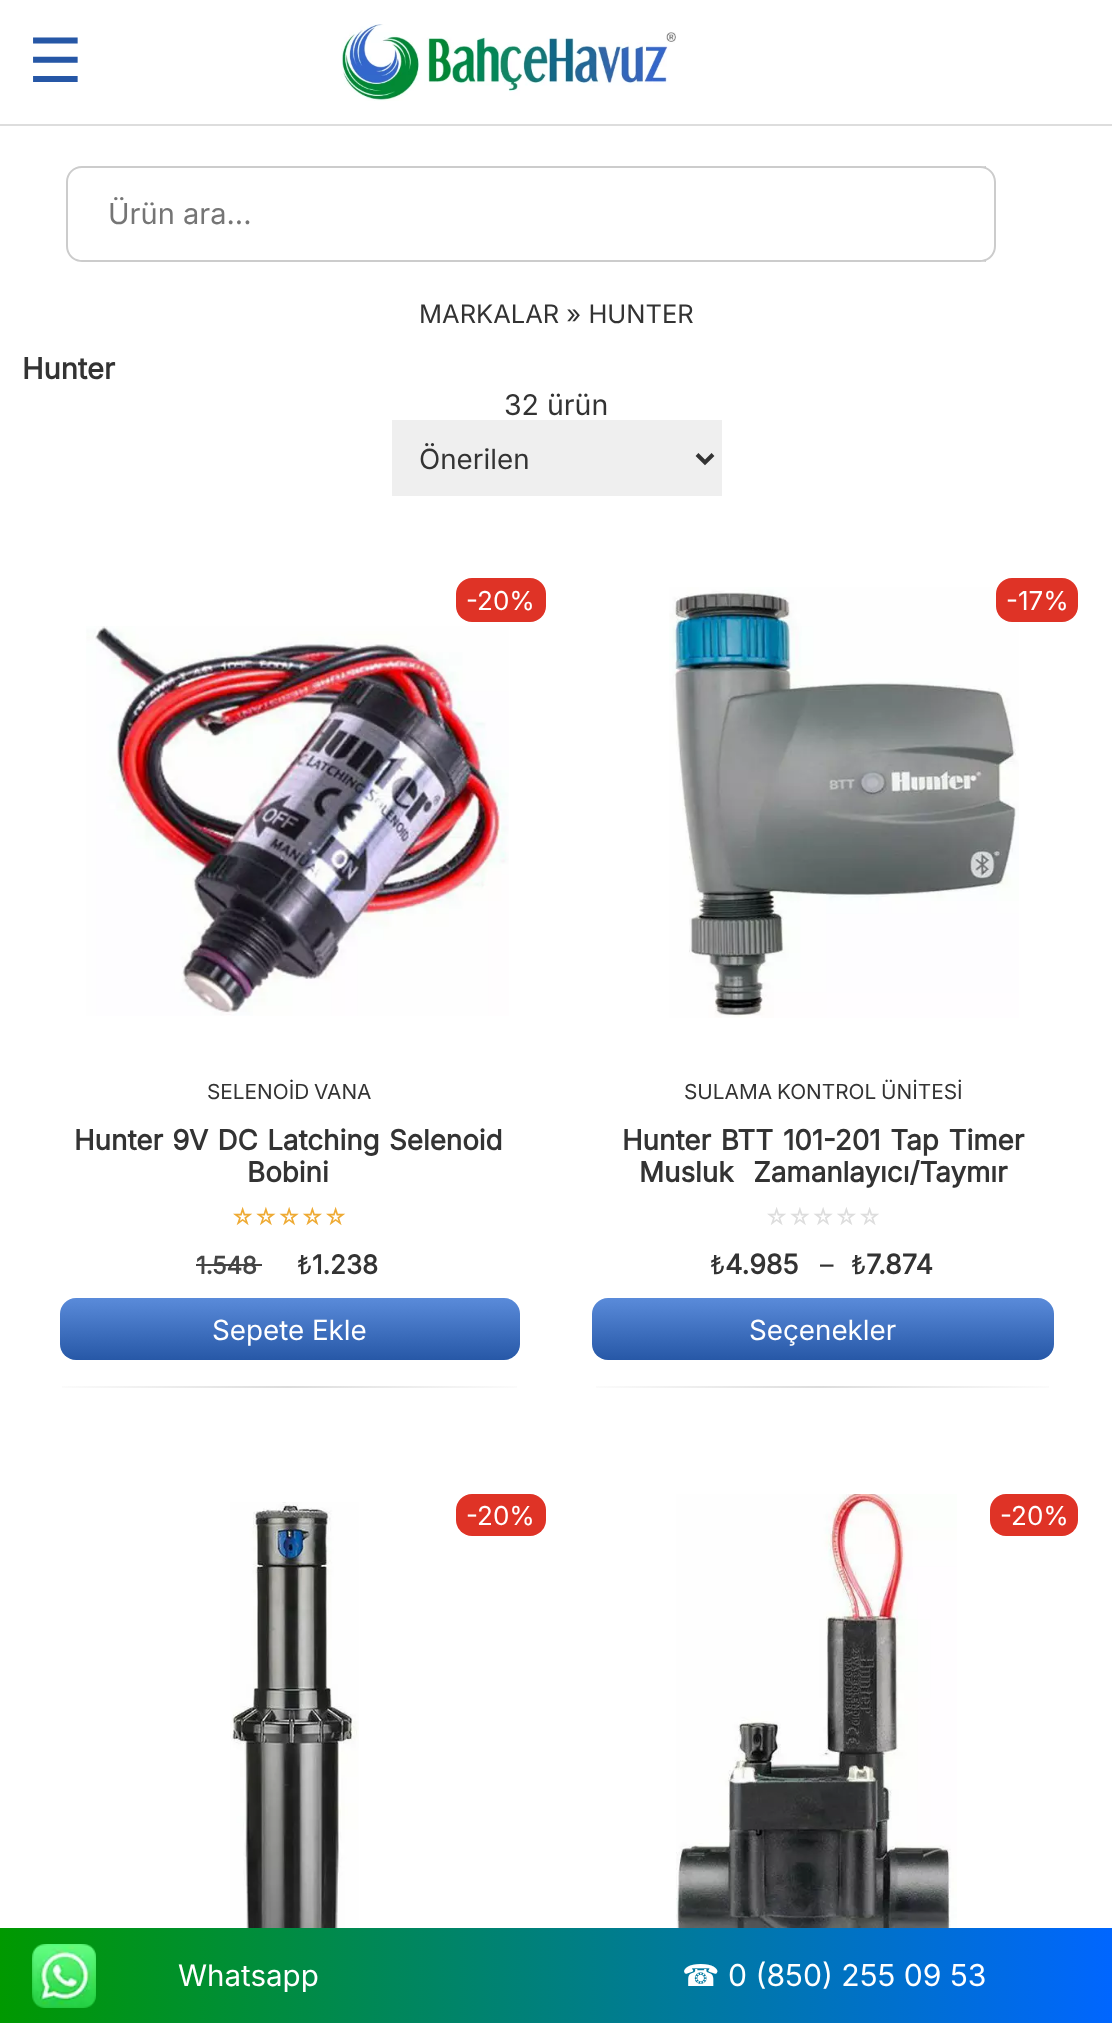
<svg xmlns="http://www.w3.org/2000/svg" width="1112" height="2023">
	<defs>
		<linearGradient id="g1" gradientUnits="userSpaceOnUse" x1="289" y1="1299" x2="289" y2="1361"><stop offset="0" stop-color="#598AD9" /><stop offset="1" stop-color="#2657A6" /></linearGradient>
		<linearGradient id="g2" gradientUnits="userSpaceOnUse" x1="822" y1="1299" x2="822" y2="1361"><stop offset="0" stop-color="#598AD9" /><stop offset="1" stop-color="#2657A6" /></linearGradient>
		<linearGradient id="g3" gradientUnits="userSpaceOnUse" x1="0" y1="1976" x2="1112" y2="1976"><stop offset="0" stop-color="#009900" /><stop offset="1" stop-color="#0066FF" /></linearGradient>
	</defs>
	<rect width="100%" height="100%" fill="#FFFFFF" />
	<text x="28" y="82" font-family="DejaVu Sans" font-size="61" fill="#2657A6">☰</text>
	<rect x="0" y="124" width="1112" height="2" fill="#DDDDDD" />
	<image x="341" y="24" width="335" height="77" href="assets/img1.png" />
	<path d="M82 166H986V262H82C73 262 66 255 66 246V182C66 173 73 166 82 166ZM82 168H986V260H82C74 260 68 254 68 246V182C68 174 74 168 82 168Z" fill="#CCCCCC" fill-rule="evenodd" />
	<text x="108" y="224" font-family="Inter" font-size="29" fill="#757575">Ürün ara...</text>
	<path d="M918 166H980C989 166 996 173 996 182V246C996 255 989 262 980 262H918Z" fill="#FFFFFF" />
	<path d="M918 166H980C989 166 996 173 996 182V246C996 255 989 262 980 262H918ZM918 168H980C988 168 994 174 994 182V246C994 254 988 260 980 260H918Z" fill="#CCCCCC" fill-rule="evenodd" />
	<text x="419" y="323" font-family="Inter" font-size="25.5" fill="#333333">MARKALAR » HUNTER</text>
	<text x="22" y="379" font-family="Inter" font-size="29" font-weight="700" fill="#333333">Hunter</text>
	<text x="504" y="415" font-family="Inter" font-size="28.5" fill="#333333">32 ürün</text>
	<rect x="392" y="420" width="330" height="76" fill="#EFEFEF" />
	<path d="M697 454.5L705 462.5L713 454.5" fill="none" stroke="#333333" stroke-width="4" />
	<text x="419" y="469" font-family="Inter" font-size="27.75" fill="#333333">Önerilen</text>
	<image x="62" y="1386" width="455" height="2" href="assets/img2.png" />
	<rect x="456" y="578" width="90" height="44" rx="16" fill="#DF3326" />
	<text x="466" y="610" font-family="Inter" font-size="26" fill="#FFFFFF">-20%</text>
	<image x="86" y="626" width="423" height="390" href="assets/img3.png" />
	<text x="207" y="1099" word-spacing="-1" font-family="Inter" font-size="20.8" fill="#333333">SELENOİD VANA</text>
	<g font-family="Inter" font-size="27.75" font-weight="700" fill="#333333">
		<text x="74" y="1150" word-spacing="1.5">Hunter 9V DC Latching Selenoid</text>
		<text x="247" y="1182">Bobini</text>
	</g>
	<text x="231" y="1225" font-family="Inter" font-size="22.25" fill="#EEAA33">☆☆☆☆☆</text>
	<text x="196" y="1274" font-family="Inter" font-size="24" font-weight="700" fill="#454545">1.548</text>
	<rect x="196" y="1264" width="66" height="2" fill="#454545" />
	<text x="297" y="1274" font-family="Inter" font-size="26" fill="#333333">₺</text>
	<text x="312" y="1274" font-family="Inter" font-size="26" font-weight="700" fill="#333333">1.238</text>
	<rect x="60" y="1298" width="460" height="62" rx="16" fill="url(#g1)" />
	<text x="212" y="1340" font-family="Inter" font-size="27.75" fill="#FFFFFF">Sepete Ekle</text>
	<image x="596" y="1386" width="453" height="2" href="assets/img4.png" />
	<image x="669" y="587" width="350" height="431" href="assets/img5.png" />
	<rect x="996" y="578" width="82" height="44" rx="16" fill="#DF3326" />
	<text x="1006" y="610" font-family="Inter" font-size="26" fill="#FFFFFF">-17%</text>
	<text x="684" y="1099" word-spacing="-1" font-family="Inter" font-size="20.8" fill="#333333">SULAMA KONTROL ÜNİTESİ</text>
	<g font-family="Inter" font-size="27.75" font-weight="700" fill="#333333">
		<text x="622" y="1150" word-spacing="2">Hunter BTT 101-201 Tap Timer</text>
		<text x="639" y="1182" word-spacing="12">Musluk Zamanlayıcı/Taymır</text>
	</g>
	<text x="765" y="1225" font-family="Inter" font-size="22.25" fill="#DDDDDD">☆☆☆☆☆</text>
	<text x="710" y="1274" font-family="Inter" font-size="26" fill="#333333">₺</text>
	<text x="725" y="1274" font-family="Inter" font-size="27" font-weight="700" fill="#333333">4.985</text>
	<text x="820" y="1274" font-family="Inter" font-size="27" fill="#333333">–</text>
	<text x="851" y="1274" font-family="Inter" font-size="26" fill="#333333">₺</text>
	<text x="866" y="1274" font-family="Inter" font-size="27" font-weight="700" fill="#333333">7.874</text>
	<rect x="592" y="1298" width="462" height="62" rx="16" fill="url(#g2)" />
	<text x="749" y="1340" font-family="Inter" font-size="27.75" fill="#FFFFFF">Seçenekler</text>
	<image x="230" y="1502" width="129" height="426" href="assets/img6.png" />
	<rect x="456" y="1494" width="90" height="42" rx="16" fill="#DF3326" />
	<text x="466" y="1525" font-family="Inter" font-size="26" fill="#FFFFFF">-20%</text>
	<image x="676" y="1494" width="281" height="434" href="assets/img7.png" />
	<rect x="990" y="1494" width="88" height="42" rx="16" fill="#DF3326" />
	<text x="1000" y="1525" font-family="Inter" font-size="26" fill="#FFFFFF">-20%</text>
	<rect x="0" y="1928" width="1112" height="95" fill="url(#g3)" />
	<image x="32" y="1944" width="64" height="64" href="assets/img8.png" />
	<text x="178" y="1986" font-family="Inter" font-size="29.5" fill="#FFFFFF">Whatsapp</text>
	<text x="682" y="1986" font-family="DejaVu Sans" font-size="30.1" fill="#FFFFFF">☎</text>
	<text x="728" y="1986" font-family="Inter" font-size="30.1" fill="#FFFFFF">0 (850) 255 09 53</text>
</svg>
